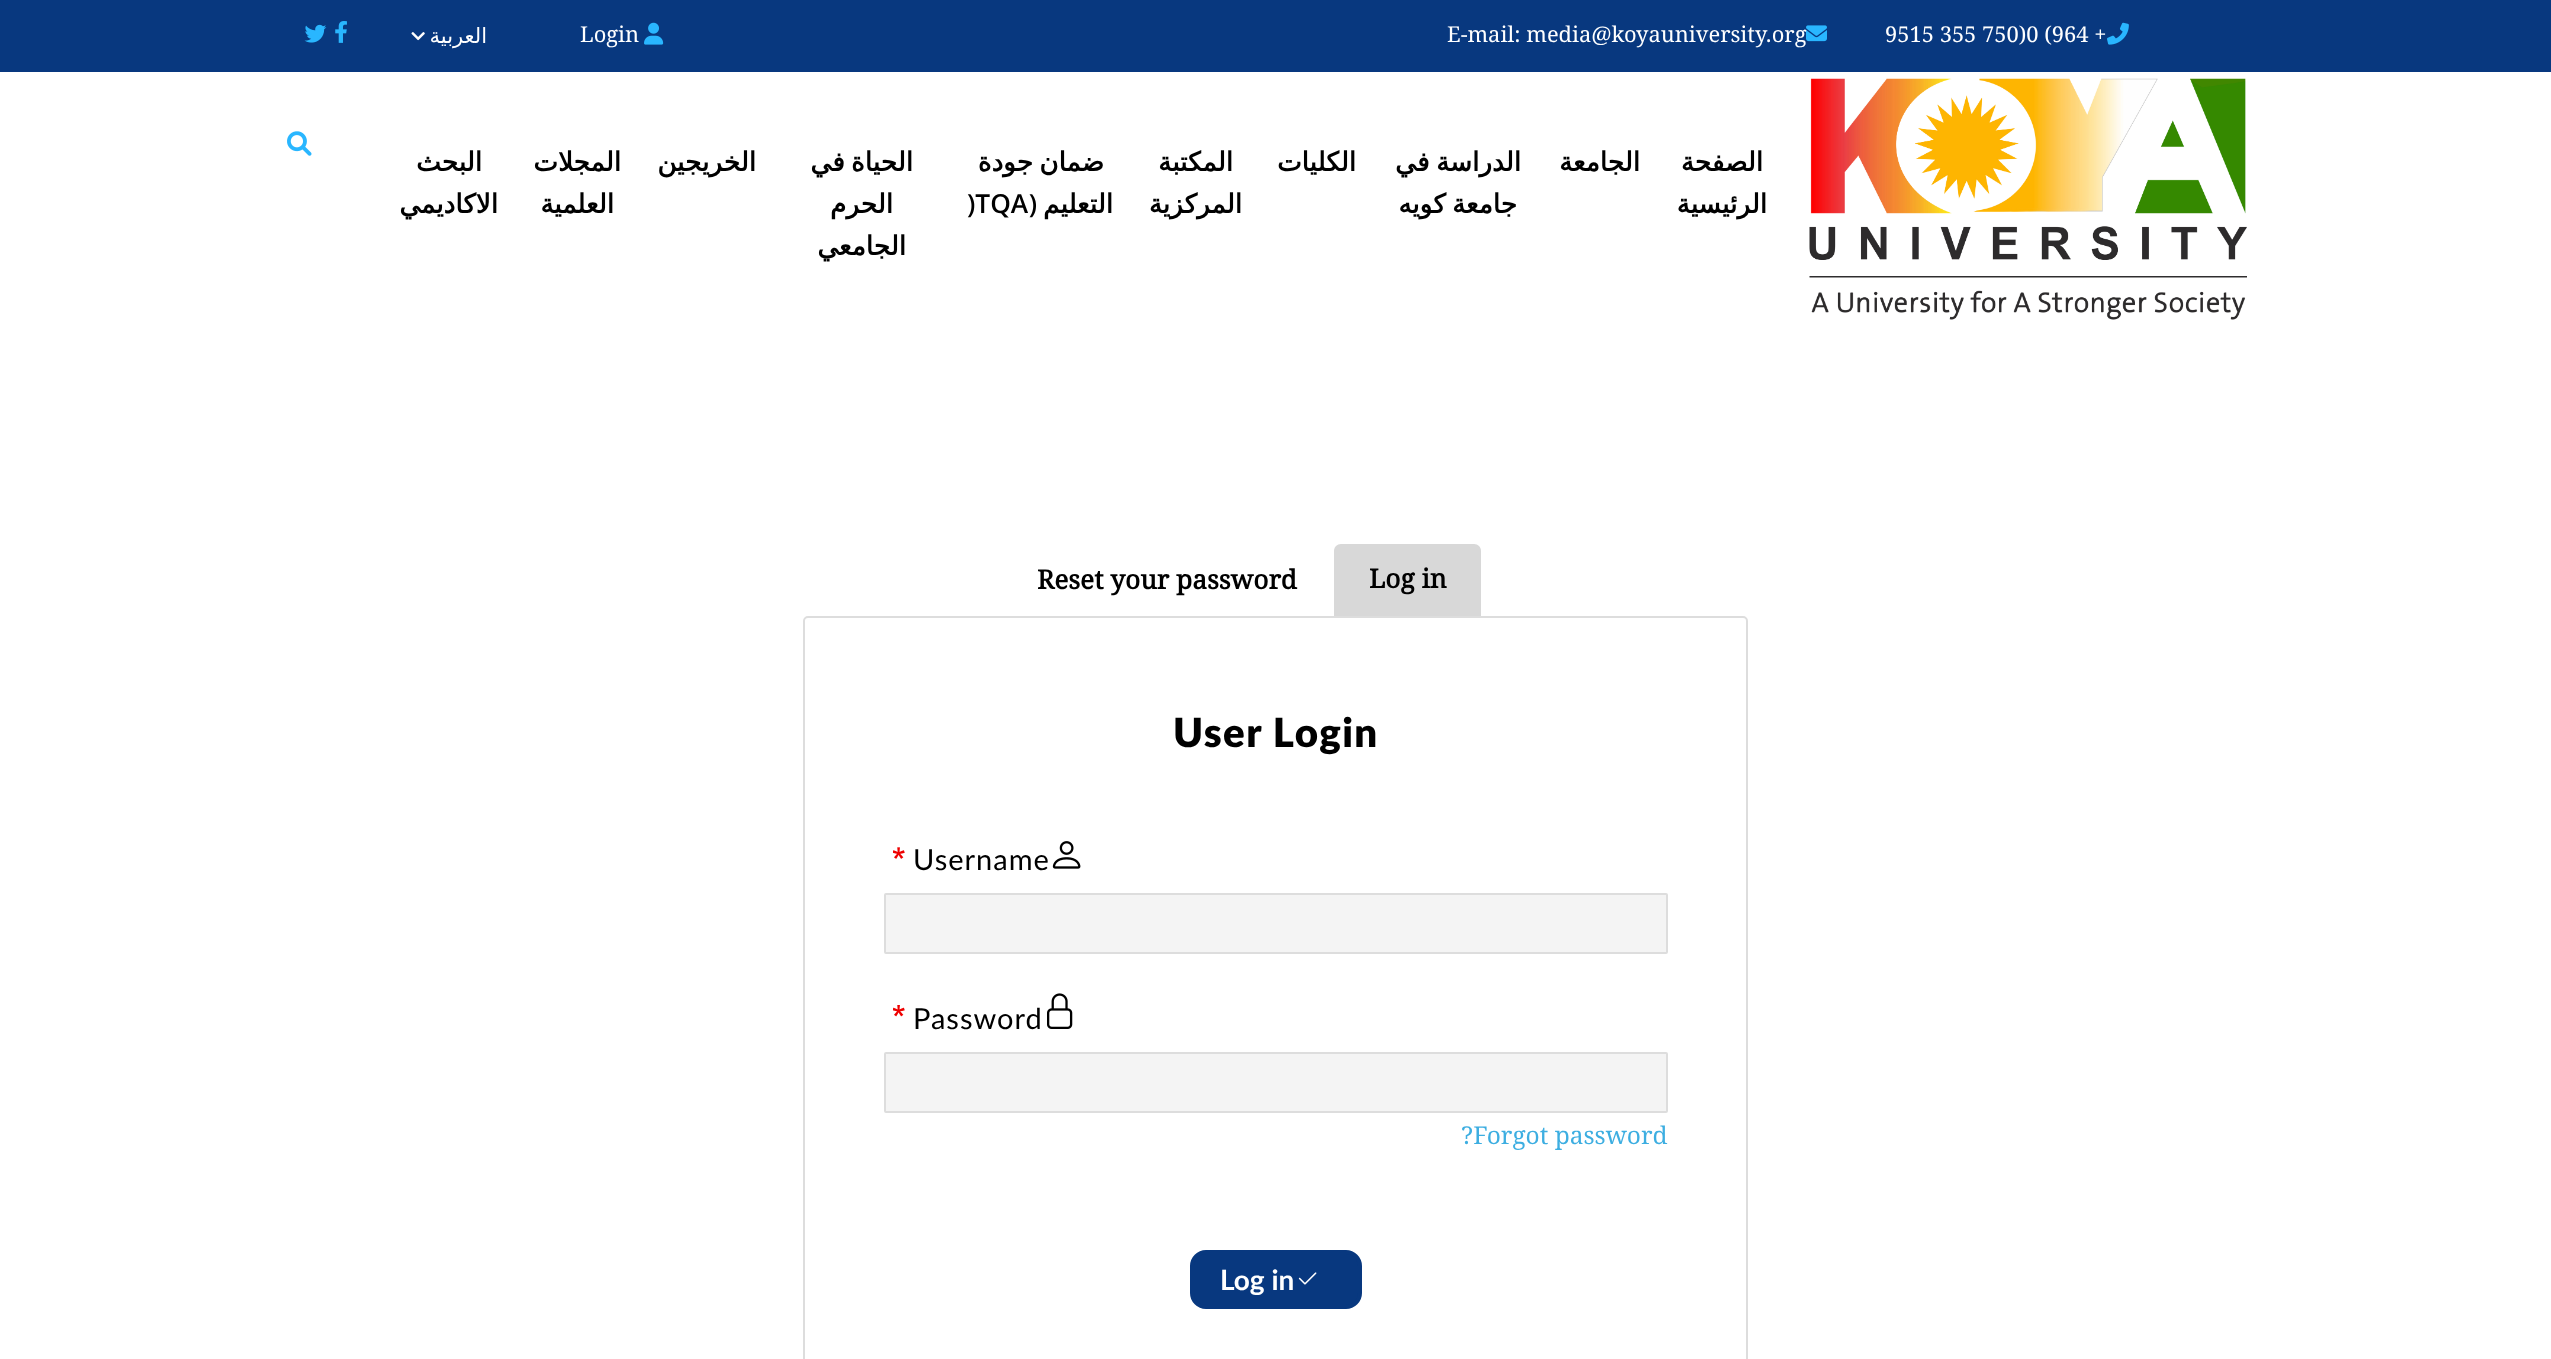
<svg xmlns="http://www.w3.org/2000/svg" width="2551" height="1359">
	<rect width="100%" height="100%" fill="#FFFFFF" />
	<rect x="0" y="0" width="2551" height="72" fill="#08387F" />
	<image x="2107" y="22" width="22" height="23" href="assets/img1.png" />
	<text x="1885" y="42" font-family="Droid Serif" font-size="21.9" fill="#FFFFFF">9515 355 750)0 (964 +</text>
	<image x="1806" y="25" width="21" height="17" href="assets/img2.png" />
	<text x="1447" y="42" font-family="Droid Serif" font-size="21.9" fill="#FFFFFF">E-mail: media@koyauniversity.org</text>
	<image x="644" y="22" width="20" height="23" href="assets/img3.png" />
	<text x="580" y="42" font-family="Droid Serif" font-size="21.9" fill="#FFFFFF">Login</text>
	<text x="487" y="43" font-family="DejaVu Sans" font-size="21" direction="rtl" fill="#FFFFFF">العربية</text>
	<image x="411" y="32" width="14" height="9" href="assets/img4.png" />
	<image x="335" y="21" width="12" height="22" href="assets/img5.png" />
	<image x="304" y="24" width="23" height="19" href="assets/img6.png" />
	<image x="287" y="131" width="25" height="25" href="assets/img7.png" />
	<image x="1809" y="78" width="438" height="242" href="assets/img8.png" />
	<g font-family="DejaVu Sans" font-size="26.25" font-weight="700" direction="rtl" fill="#000000">
		<text x="1763" y="171">الصفحة</text>
		<text x="1767" y="213">الرئیسیة</text>
		<text x="1640" y="171">الجامعة</text>
		<text x="1521" y="171" word-spacing="-2">الدراسة في</text>
		<text x="1517" y="213" word-spacing="-2">جامعة کویە</text>
		<text x="1356" y="171">الکلیات</text>
		<text x="1233" y="171">المکتبة</text>
		<text x="1242" y="213">المرکزیة</text>
		<text x="1104" y="171" word-spacing="-2">ضمان جودة</text>
		<text x="1113" y="213">التعلیم</text>
	</g>
	<text x="1037" y="213" font-family="Open Sans" font-size="26.25" font-weight="600" direction="rtl" fill="#000000">(</text>
	<text x="967" y="213" font-family="Open Sans" font-size="26.25" font-weight="600" fill="#000000">)TQA</text>
	<g font-family="DejaVu Sans" font-size="26.25" font-weight="700" direction="rtl" fill="#000000">
		<text x="913" y="171" word-spacing="-2">الحیاة في</text>
		<text x="893" y="213">الحرم</text>
		<text x="906" y="255">الجامعي</text>
		<text x="756" y="171">الخریجین</text>
		<text x="621" y="171">المجلات</text>
		<text x="614" y="213">العلمیة</text>
		<text x="482" y="171">البحث</text>
		<text x="498" y="213">الاکادیمي</text>
	</g>
	<path d="M1341 544H1474C1478 544 1481 547 1481 551V616H1334V551C1334 547 1337 544 1341 544Z" fill="#D8D8D8" />
	<g font-family="Droid Serif" font-size="26.25" font-weight="700" fill="#000000">
		<text x="1369" y="588">Log in</text>
		<text x="1037" y="589">Reset your password</text>
	</g>
	<rect x="804" y="617" width="943" height="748" rx="4" fill="none" stroke="#DDDDDD" stroke-width="2" />
	<text x="1173" y="747" font-family="Lato" font-size="40.25" font-weight="900" letter-spacing="1.4" fill="#000000">User Login</text>
	<image x="1052" y="841" width="29" height="28" href="assets/img9.png" />
	<text x="913" y="870" font-family="Lato" font-size="29" letter-spacing="1" fill="#000000">Username</text>
	<image x="893" y="847" width="12" height="12" href="assets/img10.png" />
	<rect x="885" y="894" width="782" height="59" rx="1" fill="#F4F4F4" stroke="#DDDDDD" stroke-width="2" />
	<image x="1047" y="993" width="26" height="36" href="assets/img11.png" />
	<text x="913" y="1029" font-family="Lato" font-size="29" letter-spacing="1" fill="#000000">Password</text>
	<image x="893" y="1005" width="12" height="12" href="assets/img12.png" />
	<rect x="885" y="1053" width="782" height="59" rx="1" fill="#F4F4F4" stroke="#DDDDDD" stroke-width="2" />
	<text x="1461" y="1144" font-family="Droid Serif" font-size="24.5" fill="#3DAEE1">?Forgot password</text>
	<rect x="1192" y="1252" width="168" height="55" rx="14" fill="#08387F" stroke="#08387F" stroke-width="4" />
	<image x="1298" y="1272" width="19" height="13" href="assets/img13.png" />
	<text x="1220" y="1290" font-family="Lato" font-size="28" font-weight="700" fill="#FFFFFF">Log in</text>
</svg>
